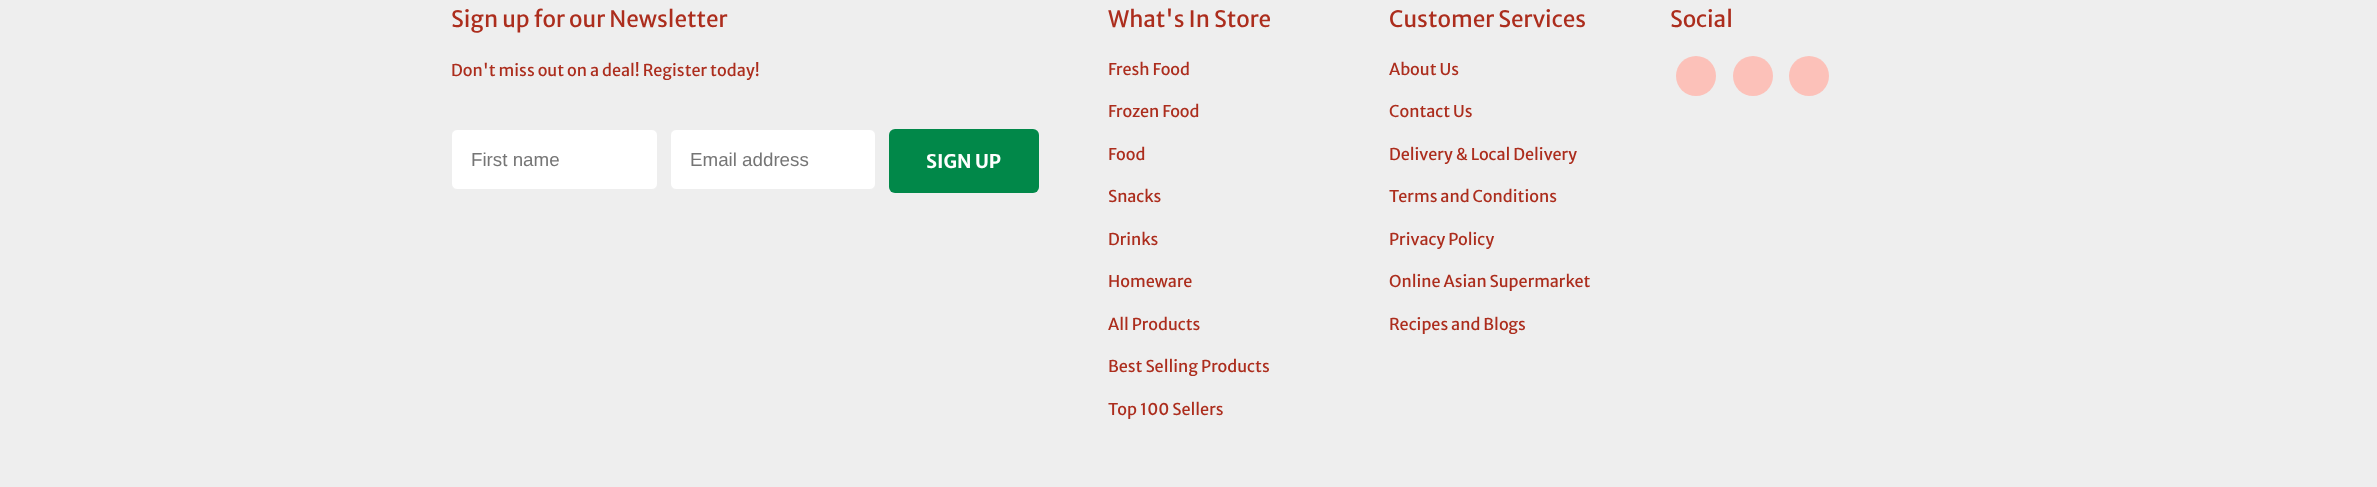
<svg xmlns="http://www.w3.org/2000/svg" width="2377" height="487">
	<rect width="100%" height="100%" fill="#EEEEEE" />
	<text x="451" y="27" font-family="Merriweather Sans" font-size="22.5" fill="#AC2D1D">Sign up for our Newsletter</text>
	<text x="451" y="76" font-family="Merriweather Sans" font-size="16.25" fill="#AC2D1D">Don't miss out on a deal! Register today!</text>
	<rect x="451.5" y="129.5" width="206" height="60" rx="5.5" fill="#FFFFFF" stroke="#EEEEEE" />
	<text x="471" y="166" font-family="Liberation Sans" font-size="18.75" fill="#757575">First name</text>
	<rect x="670.5" y="129.5" width="205" height="60" rx="5.5" fill="#FFFFFF" stroke="#EEEEEE" />
	<text x="690" y="166" font-family="Liberation Sans" font-size="18.75" fill="#757575">Email address</text>
	<rect x="889" y="129" width="150" height="64" rx="6" fill="#018849" />
	<text x="926" y="168" font-family="Merriweather Sans" font-size="18.75" font-weight="700" fill="#FFFFFF">SIGN UP</text>
	<text x="1108" y="27" font-family="Merriweather Sans" font-size="22.5" fill="#AC2D1D">What's In Store</text>
	<g font-family="Merriweather Sans" font-size="16.25" fill="#AC2D1D">
		<text x="1108" y="75">Fresh Food</text>
		<text x="1108" y="117">Frozen Food</text>
		<text x="1108" y="160">Food</text>
		<text x="1108" y="202">Snacks</text>
		<text x="1108" y="245">Drinks</text>
		<text x="1108" y="287">Homeware</text>
		<text x="1108" y="330">All Products</text>
		<text x="1108" y="372">Best Selling Products</text>
		<text x="1108" y="415">Top 100 Sellers</text>
	</g>
	<text x="1389" y="27" font-family="Merriweather Sans" font-size="22.5" fill="#AC2D1D">Customer Services</text>
	<g font-family="Merriweather Sans" font-size="16.25" fill="#AC2D1D">
		<text x="1389" y="75">About Us</text>
		<text x="1389" y="117">Contact Us</text>
		<text x="1389" y="160">Delivery &amp; Local Delivery</text>
		<text x="1389" y="202">Terms and Conditions</text>
		<text x="1389" y="245">Privacy Policy</text>
		<text x="1389" y="287">Online Asian Supermarket</text>
		<text x="1389" y="330">Recipes and Blogs</text>
	</g>
	<text x="1670" y="27" font-family="Merriweather Sans" font-size="22.5" fill="#AC2D1D">Social</text>
	<circle cx="1696" cy="76" r="20" fill="#FCC1B9" />
	<circle cx="1753" cy="76" r="20" fill="#FCC1B9" />
	<circle cx="1809" cy="76" r="20" fill="#FCC1B9" />
</svg>
